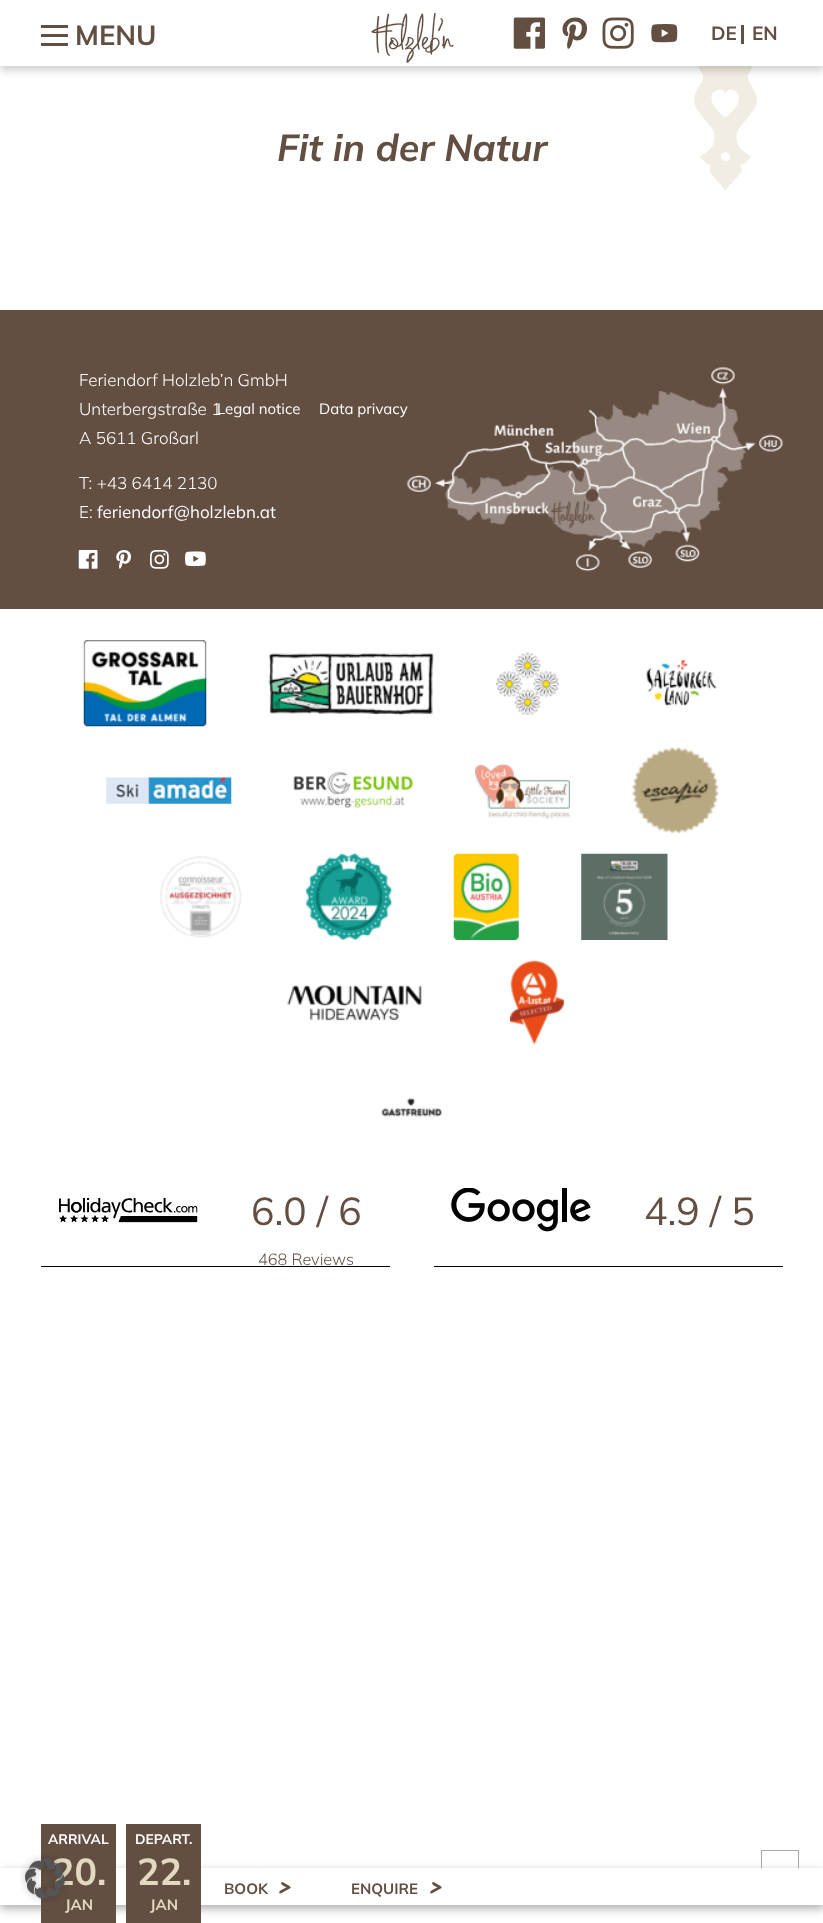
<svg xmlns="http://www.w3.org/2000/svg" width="823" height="1923">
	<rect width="100%" height="100%" fill="#FFFFFF" />
	<rect x="761.5" y="1850.5" width="37" height="37" fill="none" stroke="#B1A7A1" />
	<rect x="0" y="1871" width="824" height="38" fill="#000000" fill-opacity="0.3" filter="blur(4px)" />
	<rect x="0" y="1868" width="823" height="37" fill="#FFFFFF" />
	<rect x="41" y="1824" width="75" height="99" fill="#634E42" />
	<text x="52" y="1885" font-family="'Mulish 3'" font-size="37.5" font-weight="200" fill="#E3D8C0">20.</text>
	<text x="65" y="1910" font-family="'Mulish 3'" font-size="15" font-weight="200" fill="#E3D8C0">JAN</text>
	<image x="20" y="1854" width="50" height="49" href="assets/img1.png" />
	<image x="694" y="66" width="63" height="124" href="assets/img7.png" />
	<rect x="0" y="4" width="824" height="66" fill="#000000" fill-opacity="0.2" filter="blur(4px)" />
	<rect x="0" y="0" width="823" height="66" fill="#FFFFFF" />
	<rect x="41" y="34" width="27" height="3" fill="#634E42" />
	<rect x="41" y="25" width="27" height="3" fill="#634E42" />
	<rect x="41" y="43" width="27" height="3" fill="#634E42" />
	<text x="75" y="45" font-family="'Mulish 3'" font-size="27.5" font-weight="200" fill="#634E42">MENU</text>
	<image x="371" y="13" width="83" height="50" href="assets/img2.png" />
	<image x="513" y="17" width="32" height="32" href="assets/img3.png" />
	<image x="562" y="17" width="25" height="32" href="assets/img4.png" />
	<image x="602" y="17" width="32" height="32" href="assets/img5.png" />
	<image x="651" y="24" width="27" height="19" href="assets/img6.png" />
	<text x="711" y="40" font-family="'Mulish 3'" font-size="19" font-weight="200" fill="#634E42">DE</text>
	<rect x="741" y="25" width="3" height="19" fill="#634E42" />
	<text x="752" y="40" font-family="'Mulish 3'" font-size="19" font-weight="200" fill="#634E42">EN</text>
	<text x="277" y="161" font-family="Mulish" font-size="37.5" font-weight="200" font-style="italic" fill="#634E42">Fit in der Natur</text>
	<rect x="0" y="310" width="823" height="299" fill="#634E42" />
	<g font-family="Mulish" font-size="17" font-weight="200" fill="#FFFFFF">
		<text x="79" y="386">Feriendorf Holzleb’n GmbH</text>
		<text x="79" y="415">Unterbergstraße 1</text>
		<text x="79" y="444">A 5611 Großarl</text>
	</g>
	<text x="217" y="414" font-family="'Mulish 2'" font-size="15" font-weight="200" fill="#FFFFFF">Legal notice</text>
	<image x="407" y="367" width="376" height="205" href="assets/img8.png" />
	<text x="319" y="414" font-family="'Mulish 2'" font-size="15" font-weight="200" fill="#FFFFFF">Data privacy</text>
	<g font-family="Mulish" font-size="17" font-weight="200" fill="#FFFFFF">
		<text x="79" y="489">T: +43 6414 2130</text>
		<text x="79" y="518">E:</text>
	</g>
	<text x="97" y="518" font-family="'Mulish 2'" font-size="17" font-weight="200" fill="#FFFFFF">feriendorf@holzlebn.at</text>
	<image x="78" y="550" width="20" height="19" href="assets/img9.png" />
	<image x="116" y="550" width="15" height="19" href="assets/img10.png" />
	<image x="150" y="550" width="19" height="19" href="assets/img11.png" />
	<image x="185" y="551" width="21" height="16" href="assets/img12.png" />
	<image x="83" y="640" width="124" height="87" href="assets/img13.png" />
	<image x="268" y="653" width="166" height="62" href="assets/img14.png" />
	<image x="496" y="652" width="63" height="63" href="assets/img15.png" />
	<image x="646" y="659" width="71" height="47" href="assets/img16.png" />
	<image x="106" y="777" width="126" height="27" href="assets/img17.png" />
	<image x="293" y="771" width="120" height="37" href="assets/img18.png" />
	<image x="475" y="763" width="95" height="56" href="assets/img19.png" />
	<image x="632" y="747" width="87" height="87" href="assets/img20.png" />
	<image x="160" y="856" width="82" height="82" href="assets/img21.png" />
	<image x="306" y="853" width="86" height="87" href="assets/img22.png" />
	<image x="453" y="853" width="66" height="87" href="assets/img23.png" />
	<image x="581" y="853" width="87" height="87" href="assets/img24.png" />
	<image x="287" y="984" width="135" height="37" href="assets/img25.png" />
	<image x="510" y="960" width="54" height="86" href="assets/img26.png" />
	<image x="381" y="1097" width="62" height="20" href="assets/img27.png" />
	<rect x="41" y="1266" width="349" height="1" fill="#000000" />
	<image x="59" y="1198" width="139" height="25" href="assets/img28.png" />
	<text x="251" y="1225" font-family="'Mulish 2'" font-size="39" font-weight="200" fill="#634E42">6.0 / 6</text>
	<text x="258" y="1265" font-family="Mulish" font-size="16.25" font-weight="200" fill="#634E42">468 Reviews</text>
	<rect x="434" y="1266" width="349" height="1" fill="#000000" />
	<image x="451" y="1188" width="140" height="44" href="assets/img29.png" />
	<text x="644" y="1225" font-family="'Mulish 2'" font-size="39" font-weight="200" fill="#634E42">4.9 / 5</text>
	<text x="48" y="1844" font-family="'Mulish 3'" font-size="13.75" font-weight="200" fill="#FFFFFF">ARRIVAL</text>
	<rect x="126" y="1824" width="75" height="99" fill="#634E42" />
	<text x="135" y="1844" font-family="'Mulish 3'" font-size="13.75" font-weight="200" fill="#FFFFFF">DEPART.</text>
	<text x="137" y="1885" font-family="'Mulish 3'" font-size="37.5" font-weight="200" fill="#E3D8C0">22.</text>
	<text x="150" y="1910" font-family="'Mulish 3'" font-size="15" font-weight="200" fill="#E3D8C0">JAN</text>
	<text x="224" y="1894" font-family="'Mulish 3'" font-size="15" font-weight="200" fill="#634E42">BOOK</text>
	<text x="277" y="1898" font-family="Kristi" font-size="40" font-weight="700" fill="#634E42">&gt;</text>
	<text x="351" y="1894" font-family="'Mulish 3'" font-size="15" font-weight="200" fill="#634E42">ENQUIRE</text>
	<text x="428" y="1898" font-family="Kristi" font-size="40" font-weight="700" fill="#634E42">&gt;</text>
</svg>
